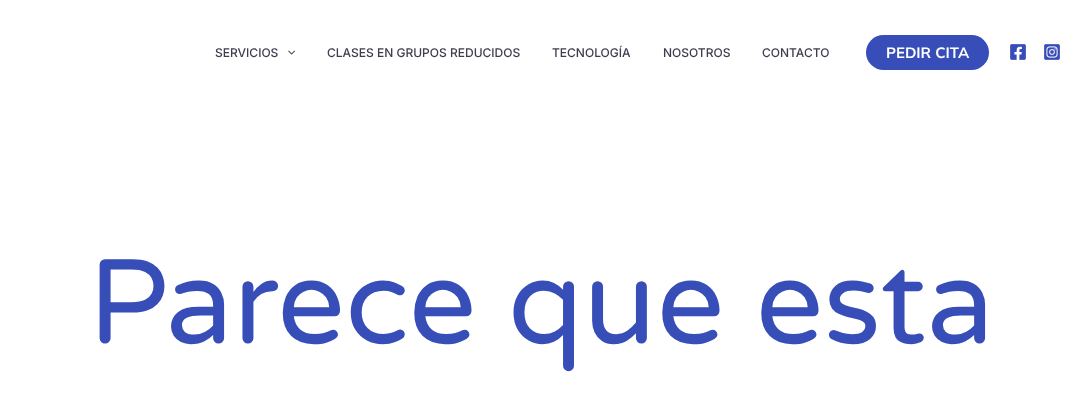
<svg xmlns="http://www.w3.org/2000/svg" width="1081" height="408">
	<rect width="100%" height="100%" fill="#FFFFFF" />
	<text x="215" y="57" font-family="Inter" font-size="12" font-weight="500" fill="#3D3D4E">SERVICIOS</text>
	<image x="288" y="50" width="7" height="5" href="assets/img1.png" />
	<g font-family="Inter" font-size="12" font-weight="500" fill="#3D3D4E">
		<text x="327" y="57">CLASES EN GRUPOS REDUCIDOS</text>
		<text x="552" y="57">TECNOLOGÍA</text>
		<text x="663" y="57">NOSOTROS</text>
		<text x="762" y="57">CONTACTO</text>
	</g>
	<rect x="866" y="35" width="123" height="35" rx="17.5" fill="#374DB7" />
	<text x="886" y="58" font-family="Mulish" font-size="15" font-weight="200" fill="#FFFFFF">PEDIR CITA</text>
	<image x="1010" y="44" width="16" height="16" href="assets/img2.png" />
	<image x="1044" y="44" width="16" height="16" href="assets/img3.png" />
	<text x="88" y="343" font-family="Varela Round" font-size="120" fill="#374DB7">Parece que esta</text>
</svg>
